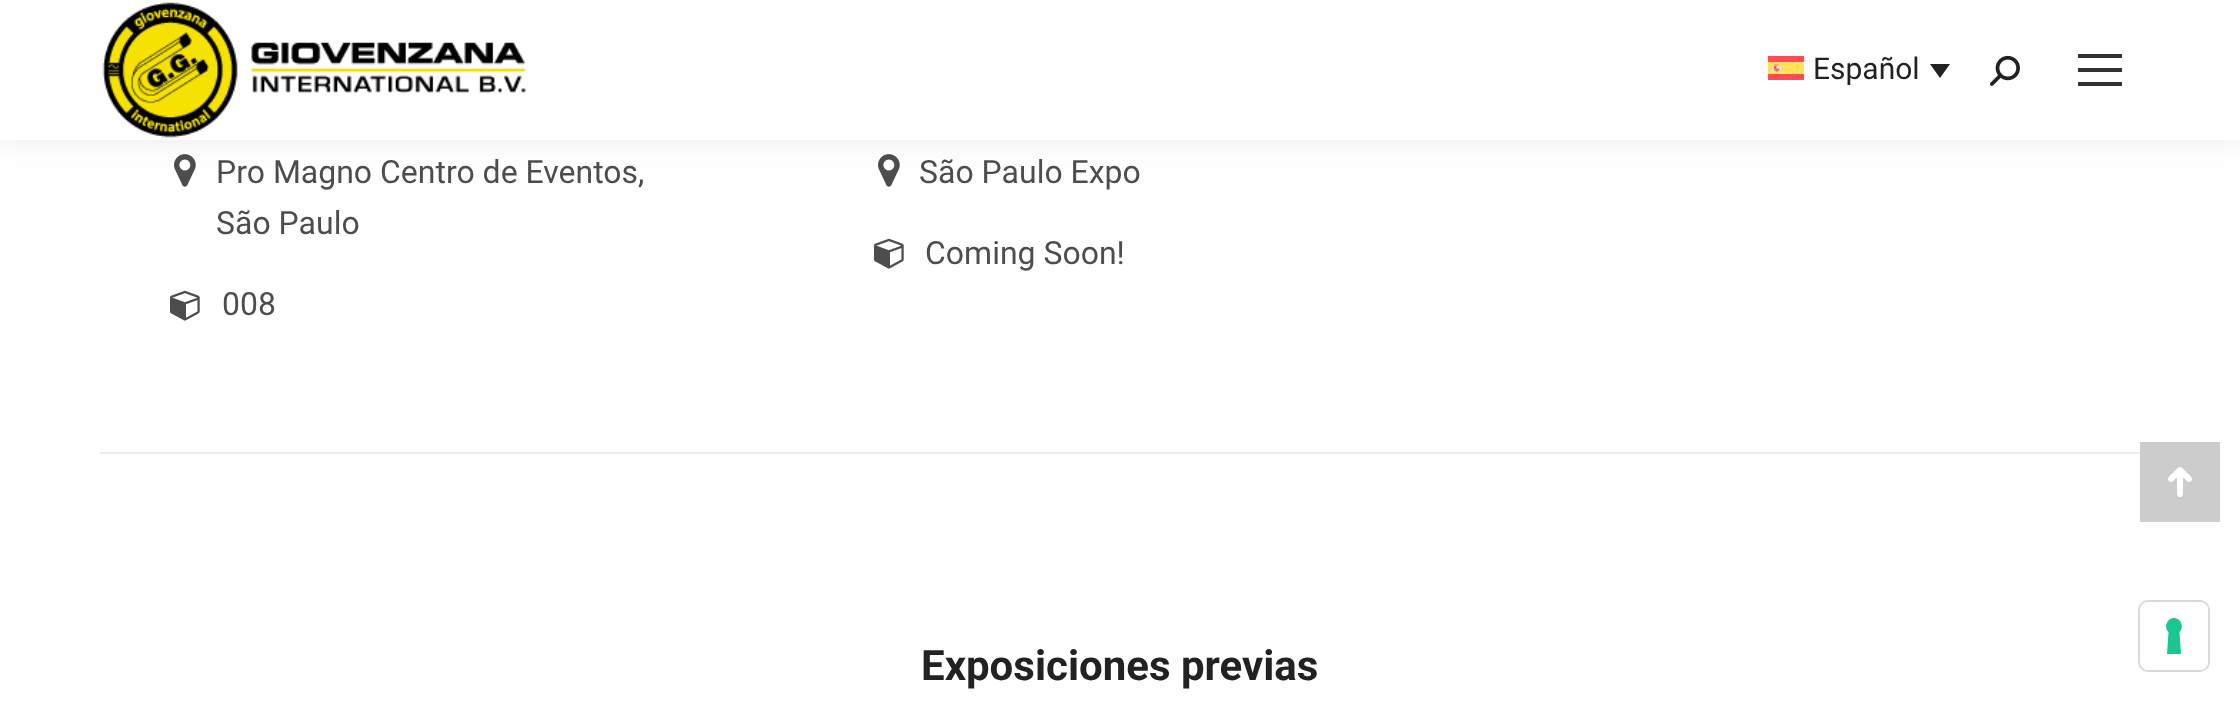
<svg xmlns="http://www.w3.org/2000/svg" width="2240" height="701">
	<rect width="100%" height="100%" fill="#FFFFFF" />
	<image x="174" y="154" width="22" height="33" href="assets/img4.png" />
	<image x="878" y="154" width="22" height="33" href="assets/img4.png" />
	<rect x="-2" y="-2" width="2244" height="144" fill="#000000" fill-opacity="0.07" filter="blur(15px)" />
	<rect x="0" y="0" width="2240" height="140" fill="#FFFFFF" />
	<image x="102" y="2" width="424" height="136" href="assets/img1.png" />
	<image x="1768" y="56" width="36" height="24" href="assets/img2.png" />
	<text x="1813" y="79" font-family="Roboto" font-size="30" fill="#222222">Español</text>
	<path d="M1930 64H1950L1940 78Z" fill="#222222" />
	<image x="1990" y="55" width="30" height="31" href="assets/img3.png" />
	<rect x="2078" y="54" width="44" height="4" fill="#333333" />
	<rect x="2078" y="68" width="44" height="4" fill="#333333" />
	<rect x="2078" y="82" width="44" height="4" fill="#333333" />
	<g font-family="Roboto" font-size="32" fill="#4D4D4D">
		<text x="216" y="183">Pro Magno Centro de Eventos,</text>
		<text x="216" y="234">São Paulo</text>
	</g>
	<image x="170" y="290" width="30" height="31" href="assets/img5.png" />
	<g font-family="Roboto" font-size="32" fill="#4D4D4D">
		<text x="222" y="315">008</text>
		<text x="919" y="183">São Paulo Expo</text>
	</g>
	<image x="874" y="238" width="30" height="31" href="assets/img5.png" />
	<text x="925" y="264" font-family="Roboto" font-size="32" fill="#4D4D4D">Coming Soon!</text>
	<rect x="100" y="452" width="2040" height="2" fill="#EBEBEB" />
	<text x="921" y="680" font-family="Roboto" font-size="42" font-weight="700" fill="#222222">Exposiciones previas</text>
	<rect x="2140" y="442" width="80" height="80" fill="#CCCCCC" />
	<image x="2168" y="467" width="24" height="30" href="assets/img6.png" />
	<rect x="2139" y="601" width="70" height="70" rx="9" fill="none" stroke="#D9D9D9" stroke-width="2" />
	<rect x="2140" y="602" width="68" height="68" rx="8" fill="#FFFFFF" />
	<path d="M2174 618C2181 618 2184.5 627.5 2179.5 632L2181 654H2167L2168.5 632C2163.5 627.5 2167 618 2174 618Z" fill="#1CC691" fill-rule="evenodd" />
</svg>
